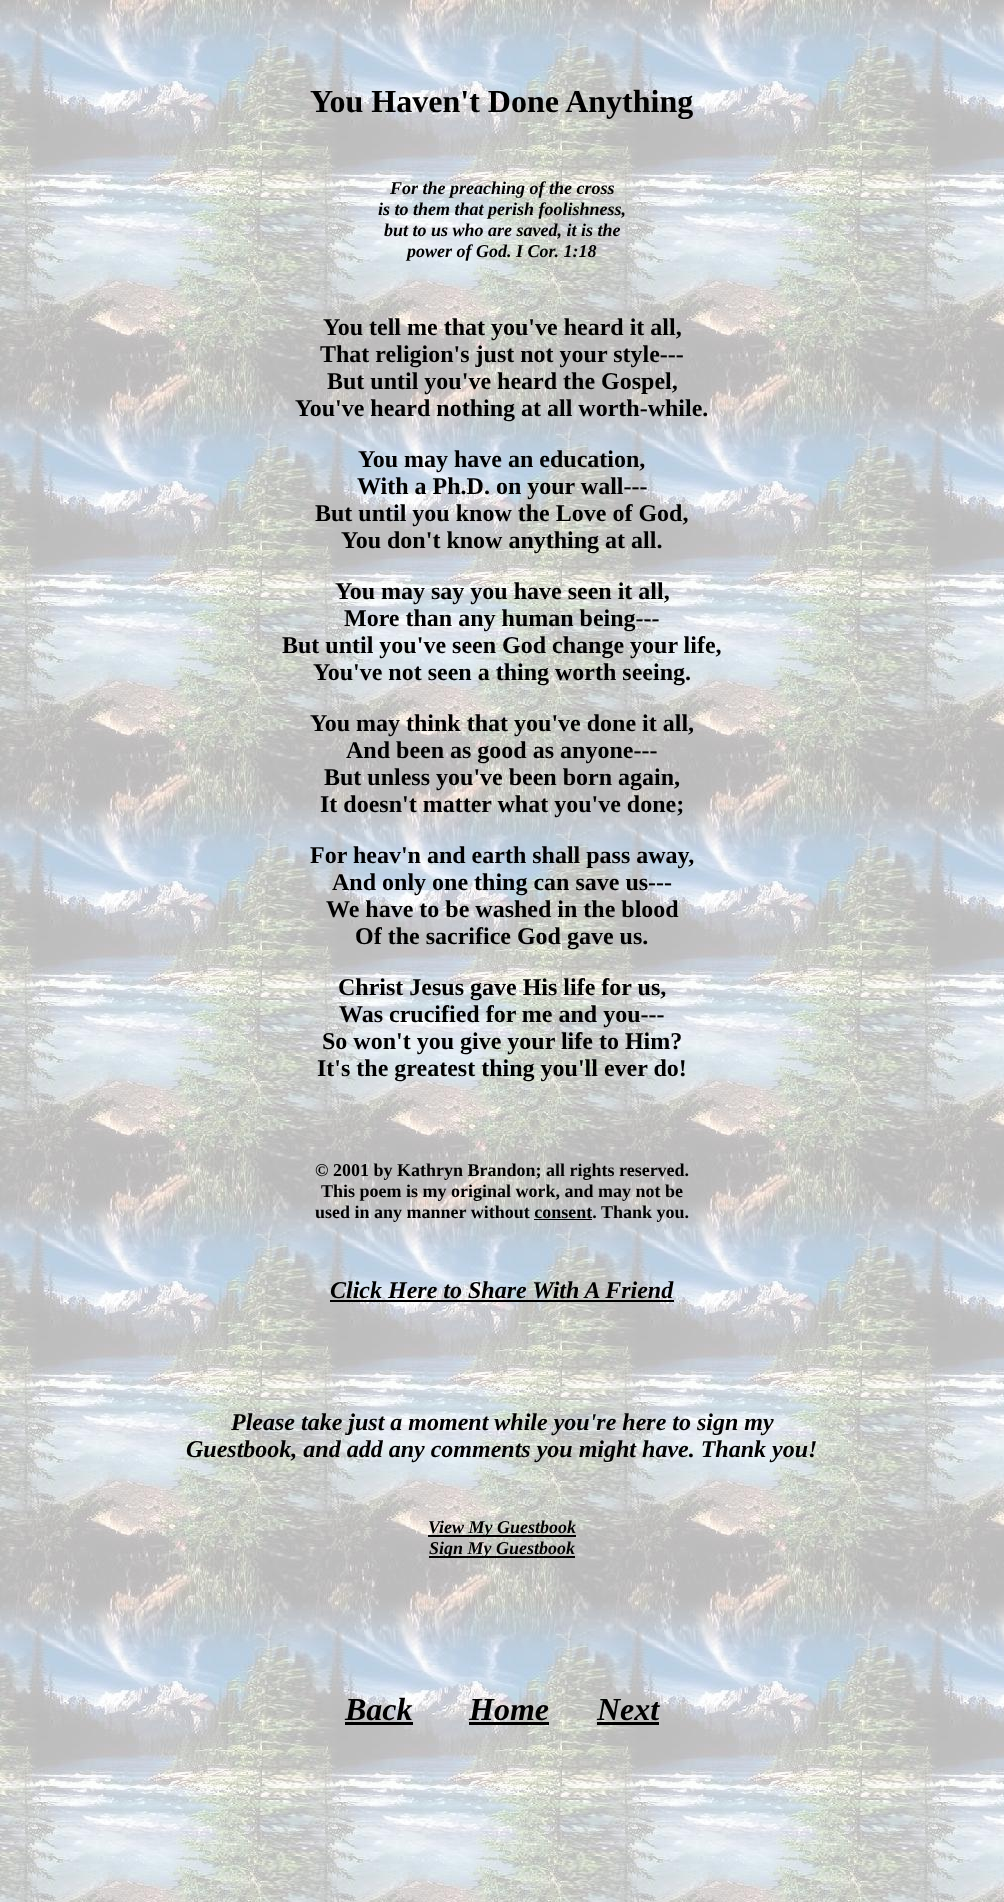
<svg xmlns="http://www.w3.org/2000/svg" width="1004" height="1902">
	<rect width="100%" height="100%" fill="#FFFFFF" />
	<image x="0" y="0" width="1004" height="1902" href="assets/img1.png" />
	<text x="310" y="112" font-family="Liberation Serif" font-size="32" font-weight="700" fill="#000000">You Haven't Done Anything</text>
	<g font-family="Liberation Serif" font-size="18" font-weight="700" font-style="italic" fill="#000000">
		<text x="390" y="194">For the preaching of the cross</text>
		<text x="378" y="215">is to them that perish foolishness,</text>
		<text x="384" y="236">but to us who are saved, it is the</text>
		<text x="407" y="257">power of God. I Cor. 1:18</text>
	</g>
	<g font-family="Liberation Serif" font-size="24" font-weight="700" fill="#000000">
		<text x="323" y="335">You tell me that you've heard it all,</text>
		<text x="320" y="362">That religion's just not your style---</text>
		<text x="327" y="389">But until you've heard the Gospel,</text>
		<text x="295" y="416">You've heard nothing at all worth-while.</text>
		<text x="358" y="467">You may have an education,</text>
		<text x="357" y="494">With a Ph.D. on your wall---</text>
		<text x="315" y="521">But until you know the Love of God,</text>
		<text x="341" y="548">You don't know anything at all.</text>
		<text x="335" y="599">You may say you have seen it all,</text>
		<text x="344" y="626">More than any human being---</text>
		<text x="282" y="653">But until you've seen God change your life,</text>
		<text x="313" y="680">You've not seen a thing worth seeing.</text>
		<text x="310" y="731">You may think that you've done it all,</text>
		<text x="346" y="758">And been as good as anyone---</text>
		<text x="324" y="785">But unless you've been born again,</text>
		<text x="320" y="812">It doesn't matter what you've done;</text>
		<text x="310" y="863">For heav'n and earth shall pass away,</text>
		<text x="332" y="890">And only one thing can save us---</text>
		<text x="326" y="917">We have to be washed in the blood</text>
		<text x="355" y="944">Of the sacrifice God gave us.</text>
		<text x="338" y="995">Christ Jesus gave His life for us,</text>
		<text x="339" y="1022">Was crucified for me and you---</text>
		<text x="322" y="1049">So won't you give your life to Him?</text>
		<text x="317" y="1076">It's the greatest thing you'll ever do!</text>
	</g>
	<g font-family="Liberation Serif" font-size="18" font-weight="700" fill="#000000">
		<text x="315" y="1176">© 2001 by Kathryn Brandon; all rights reserved.</text>
		<text x="321" y="1197">This poem is my original work, and may not be</text>
		<text x="315" y="1218">used in any manner without consent. Thank you.</text>
	</g>
	<rect x="534" y="1219" width="58" height="1" fill="#000000" />
	<text x="330" y="1298" font-family="Liberation Serif" font-size="24" font-weight="700" font-style="italic" fill="#000000">Click Here to Share With A Friend</text>
	<rect x="330" y="1300" width="344" height="2" fill="#000000" />
	<g font-family="Liberation Serif" font-size="24" font-weight="700" font-style="italic" fill="#000000">
		<text x="231" y="1430">Please take just a moment while you're here to sign my</text>
		<text x="186" y="1457">Guestbook, and add any comments you might have. Thank you!</text>
	</g>
	<rect x="428" y="1535" width="148" height="2" fill="#000000" />
	<text x="428" y="1533" font-family="Liberation Serif" font-size="18" font-weight="700" font-style="italic" fill="#000000">View My Guestbook</text>
	<rect x="429" y="1556" width="146" height="2" fill="#000000" />
	<text x="429" y="1554" font-family="Liberation Serif" font-size="18" font-weight="700" font-style="italic" fill="#000000">Sign My Guestbook</text>
	<text x="345" y="1720" font-family="Liberation Serif" font-size="32" font-weight="700" font-style="italic" fill="#000000">Back</text>
	<rect x="345" y="1722" width="68" height="3" fill="#000000" />
	<text x="469" y="1720" font-family="Liberation Serif" font-size="32" font-weight="700" font-style="italic" fill="#000000">Home</text>
	<rect x="469" y="1722" width="80" height="3" fill="#000000" />
	<text x="597" y="1720" font-family="Liberation Serif" font-size="32" font-weight="700" font-style="italic" fill="#000000">Next</text>
	<rect x="597" y="1722" width="62" height="3" fill="#000000" />
</svg>
